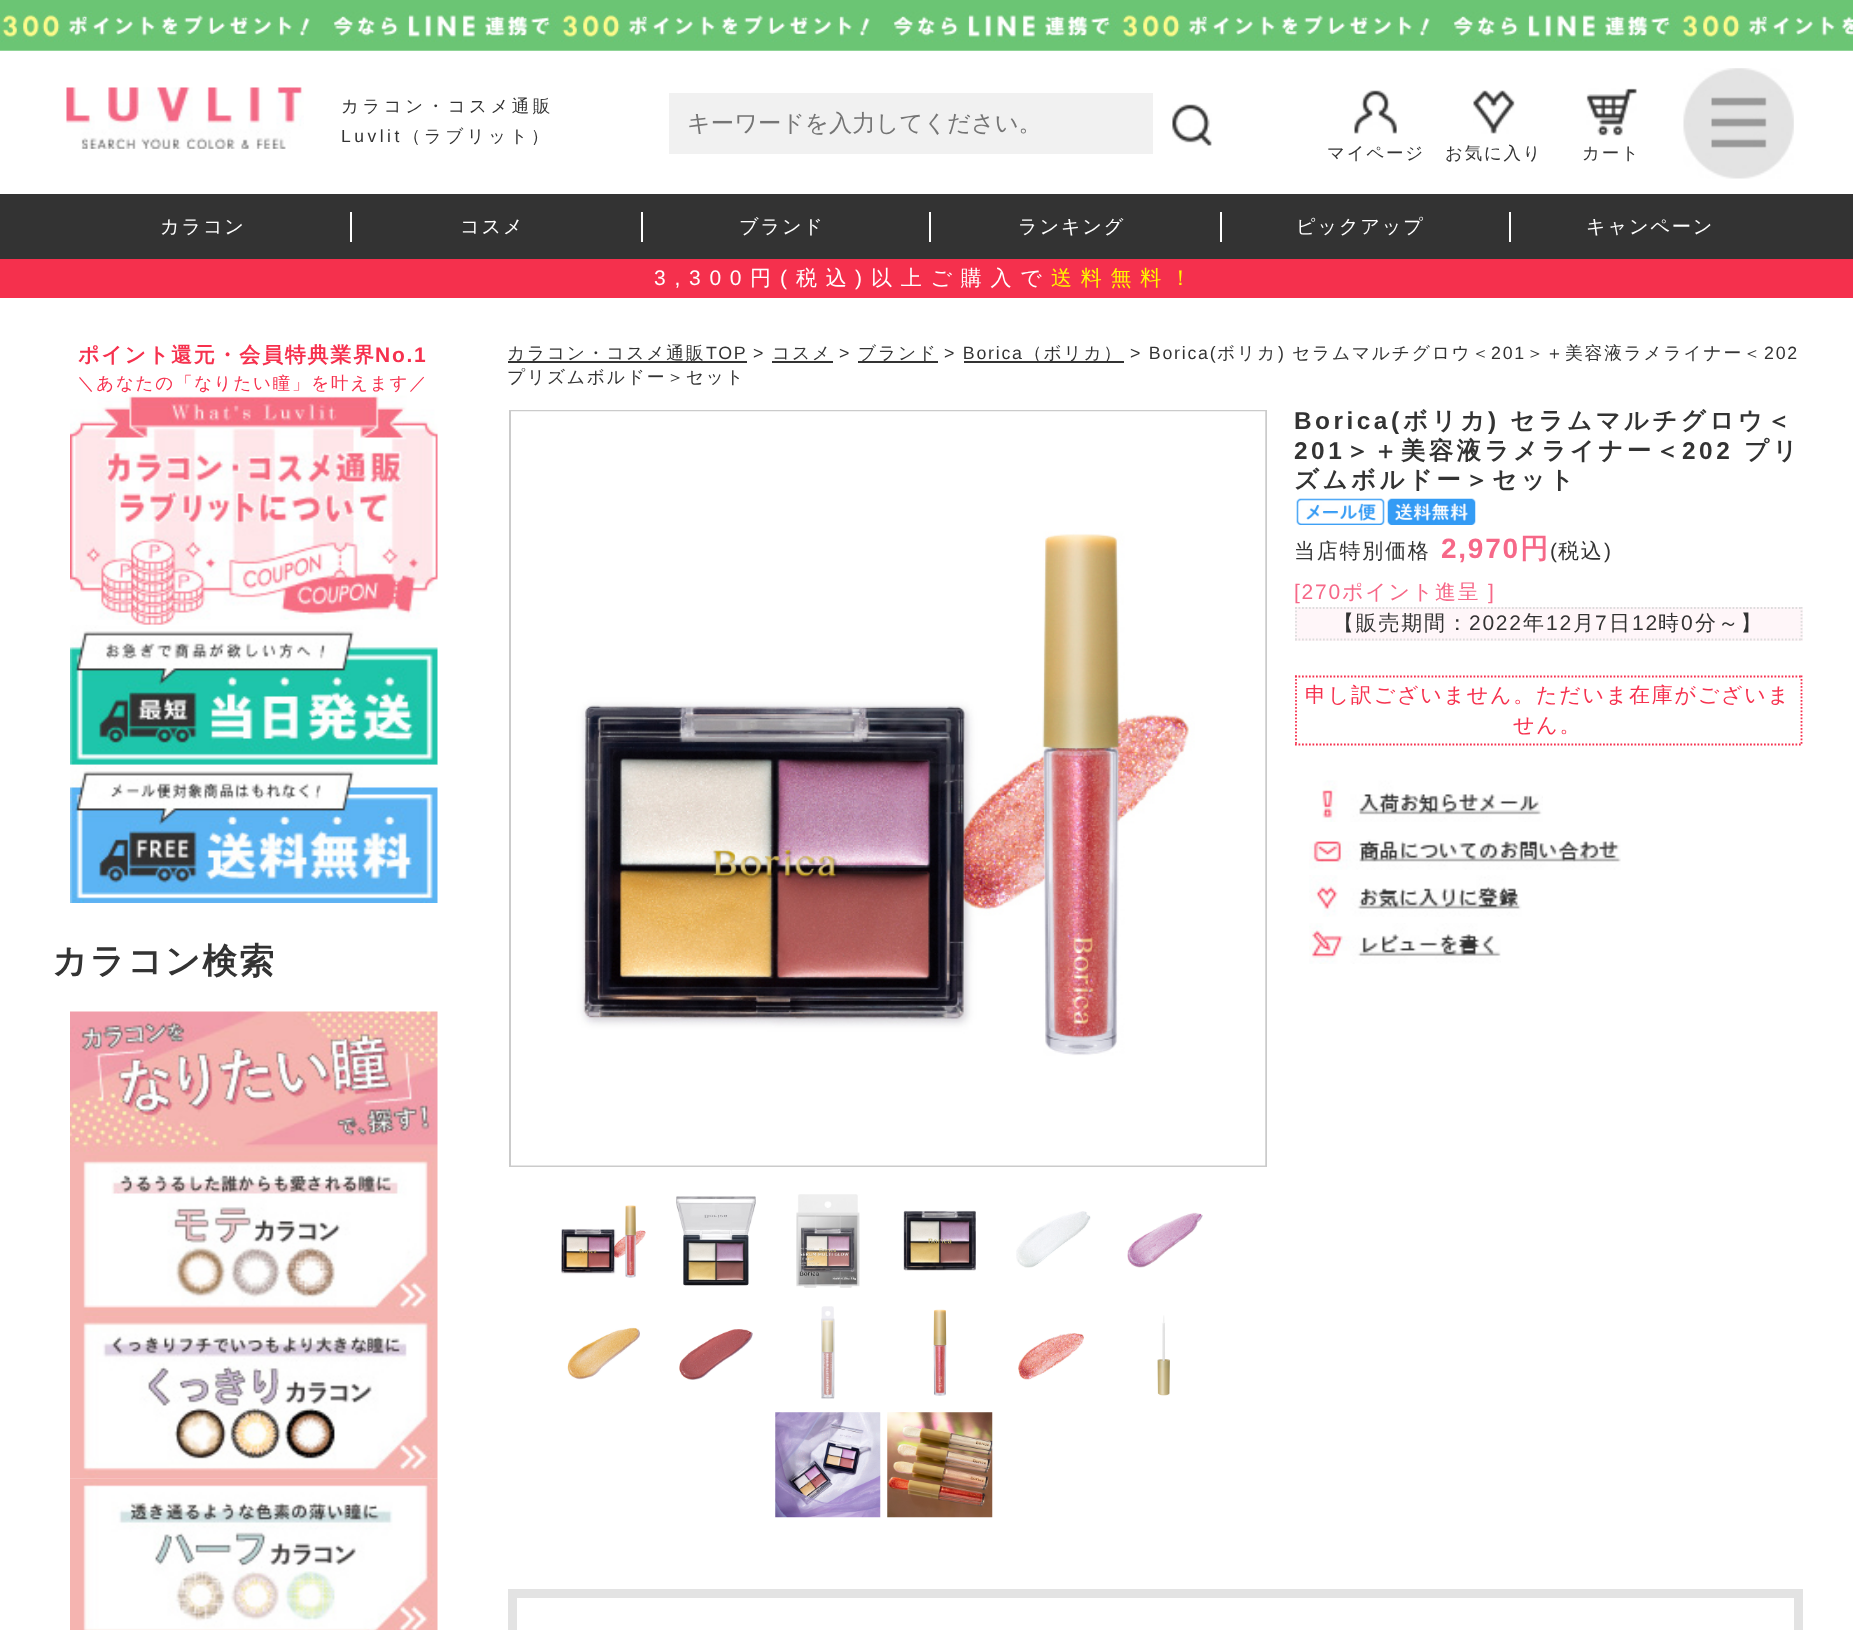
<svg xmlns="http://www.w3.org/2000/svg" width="1853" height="1630">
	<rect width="100%" height="100%" fill="#FFFFFF" />
	<image x="0" y="0" width="1853" height="51" href="assets/img1.png" />
	<image x="66" y="87" width="238" height="62" href="assets/img2.png" />
	<text x="341" y="112" font-family="WenQuanYi Zen Hei" font-size="17.5" font-weight="500" letter-spacing="3.5" fill="#333333">カラコン・コスメ通販</text>
	<text x="341" y="142" font-family="Liberation Sans" font-size="17.5" letter-spacing="3.5" fill="#333333">Luvlit</text>
	<text x="403" y="142" font-family="WenQuanYi Zen Hei" font-size="17.5" font-weight="500" letter-spacing="3.5" fill="#333333">（ラブリット）</text>
	<rect x="669" y="93" width="484" height="61" fill="#F1F1F1" />
	<text x="687" y="131" font-family="WenQuanYi Zen Hei" font-size="23.3" font-weight="500" fill="#757575">キーワードを入力してください。</text>
	<image x="1172" y="104" width="40" height="42" href="assets/img3.png" />
	<image x="1354" y="90" width="43" height="44" href="assets/img4.png" />
	<text x="1327" y="159" font-family="WenQuanYi Zen Hei" font-size="17.5" font-weight="500" letter-spacing="1.75" fill="#333333">マイページ</text>
	<image x="1473" y="90" width="42" height="44" href="assets/img5.png" />
	<text x="1445" y="159" font-family="WenQuanYi Zen Hei" font-size="17.5" font-weight="500" letter-spacing="1.75" fill="#333333">お気に入り</text>
	<image x="1586" y="88" width="51" height="48" href="assets/img6.png" />
	<text x="1582" y="159" font-family="WenQuanYi Zen Hei" font-size="17.5" font-weight="500" letter-spacing="1.75" fill="#333333">カート</text>
	<image x="1683" y="68" width="111" height="111" href="assets/img7.png" />
	<rect x="0" y="194" width="1853" height="65" fill="#333333" />
	<text x="160" y="233" font-family="WenQuanYi Zen Hei" font-size="19.25" font-weight="500" letter-spacing="1.75" fill="#FFFFFF">カラコン</text>
	<rect x="350" y="212" width="2" height="30" fill="#FFFFFF" />
	<text x="460" y="233" font-family="WenQuanYi Zen Hei" font-size="19.25" font-weight="500" letter-spacing="1.75" fill="#FFFFFF">コスメ</text>
	<rect x="641" y="212" width="2" height="30" fill="#FFFFFF" />
	<text x="739" y="233" font-family="WenQuanYi Zen Hei" font-size="19.25" font-weight="500" letter-spacing="1.75" fill="#FFFFFF">ブランド</text>
	<rect x="929" y="212" width="2" height="30" fill="#FFFFFF" />
	<text x="1018" y="233" font-family="WenQuanYi Zen Hei" font-size="19.25" font-weight="500" letter-spacing="1.75" fill="#FFFFFF">ランキング</text>
	<rect x="1220" y="212" width="2" height="30" fill="#FFFFFF" />
	<text x="1296" y="233" font-family="WenQuanYi Zen Hei" font-size="19.25" font-weight="500" letter-spacing="1.75" fill="#FFFFFF">ピックアップ</text>
	<rect x="1509" y="212" width="2" height="30" fill="#FFFFFF" />
	<text x="1586" y="233" font-family="WenQuanYi Zen Hei" font-size="19.25" font-weight="500" letter-spacing="1.75" fill="#FFFFFF">キャンペーン</text>
	<rect x="0" y="259" width="1853" height="39" fill="#F5304D" />
	<text x="654" y="285" font-family="Liberation Sans" font-size="21" letter-spacing="8.75" fill="#FFFFFF">3,300</text>
	<text x="750" y="285" font-family="WenQuanYi Zen Hei" font-size="21" font-weight="500" letter-spacing="8.75" fill="#FFFFFF">円</text>
	<text x="780" y="285" font-family="Liberation Sans" font-size="21" letter-spacing="8.75" fill="#FFFFFF">(</text>
	<text x="796" y="285" font-family="WenQuanYi Zen Hei" font-size="21" font-weight="500" letter-spacing="8.75" fill="#FFFFFF">税込</text>
	<text x="855" y="285" font-family="Liberation Sans" font-size="21" letter-spacing="8.75" fill="#FFFFFF">)</text>
	<text x="871" y="285" font-family="WenQuanYi Zen Hei" font-size="21" font-weight="500" letter-spacing="8.75" fill="#FFFFFF">以上ご購入で</text>
	<text x="1051" y="285" font-family="WenQuanYi Zen Hei" font-size="21" font-weight="500" letter-spacing="8.75" fill="#FFF700">送料無料！</text>
	<text x="78" y="362" font-family="WenQuanYi Zen Hei" font-size="21" font-weight="700" letter-spacing="1.75" fill="#F6314E">ポイント還元・会員特典業界</text>
	<text x="375" y="362" font-family="Liberation Sans" font-size="21" font-weight="700" letter-spacing="1.75" fill="#F6314E">No.1</text>
	<text x="77" y="389" font-family="WenQuanYi Zen Hei" font-size="17.5" font-weight="500" letter-spacing="1.75" fill="#F6314E">＼あなたの「なりたい瞳」を叶えます／</text>
	<image x="70" y="395" width="368" height="230" href="assets/img8.png" />
	<image x="70" y="624" width="368" height="141" href="assets/img9.png" />
	<image x="70" y="764" width="368" height="139" href="assets/img10.png" />
	<text x="52" y="973" font-family="WenQuanYi Zen Hei" font-size="35" font-weight="700" letter-spacing="1.75" fill="#333333">カラコン検索</text>
	<image x="70" y="1011" width="368" height="144" href="assets/img11.png" />
	<image x="70" y="1155" width="368" height="161" href="assets/img12.png" />
	<image x="70" y="1316" width="368" height="163" href="assets/img13.png" />
	<image x="70" y="1478" width="368" height="152" href="assets/img14.png" />
	<rect x="508" y="361" width="239" height="2" fill="#333333" />
	<text x="507" y="359" font-family="WenQuanYi Zen Hei" font-size="17.8" font-weight="500" letter-spacing="1.75" fill="#333333">カラコン・コスメ通販</text>
	<g font-family="Liberation Sans" font-size="17.8" letter-spacing="1.75" fill="#333333">
		<text x="706" y="359">TOP</text>
		<text x="753" y="359">&gt;</text>
	</g>
	<text x="772" y="359" font-family="WenQuanYi Zen Hei" font-size="17.8" font-weight="500" letter-spacing="1.75" fill="#333333">コスメ</text>
	<rect x="772" y="361" width="61" height="2" fill="#333333" />
	<text x="839" y="359" font-family="Liberation Sans" font-size="17.8" letter-spacing="1.75" fill="#333333">&gt;</text>
	<rect x="858" y="361" width="80" height="2" fill="#333333" />
	<text x="858" y="359" font-family="WenQuanYi Zen Hei" font-size="17.8" font-weight="500" letter-spacing="1.75" fill="#333333">ブランド</text>
	<text x="944" y="359" font-family="Liberation Sans" font-size="17.8" letter-spacing="1.75" fill="#333333">&gt; Borica</text>
	<rect x="964" y="361" width="160" height="2" fill="#333333" />
	<text x="1024" y="359" font-family="WenQuanYi Zen Hei" font-size="17.8" font-weight="500" letter-spacing="1.75" fill="#333333">（ボリカ）</text>
	<text x="1130" y="359" font-family="Liberation Sans" font-size="17.8" letter-spacing="1.75" fill="#333333">&gt; Borica(</text>
	<text x="1217" y="359" font-family="WenQuanYi Zen Hei" font-size="17.8" font-weight="500" letter-spacing="1.75" fill="#333333">ボリカ</text>
	<text x="1278" y="359" font-family="Liberation Sans" font-size="17.8" letter-spacing="1.75" fill="#333333">)</text>
	<text x="1292" y="359" font-family="WenQuanYi Zen Hei" font-size="17.8" font-weight="500" letter-spacing="1.75" fill="#333333">セラムマルチグロウ＜</text>
	<text x="1491" y="359" font-family="Liberation Sans" font-size="17.8" letter-spacing="1.75" fill="#333333">201</text>
	<text x="1526" y="359" font-family="WenQuanYi Zen Hei" font-size="17.8" font-weight="500" letter-spacing="1.75" fill="#333333">＞＋美容液ラメライナー＜</text>
	<text x="1764" y="359" font-family="Liberation Sans" font-size="17.8" letter-spacing="1.75" fill="#333333">202</text>
	<text x="507" y="383" font-family="WenQuanYi Zen Hei" font-size="17.8" font-weight="500" letter-spacing="1.75" fill="#333333">プリズムボルドー＞セット</text>
	<rect x="510" y="411" width="756" height="755" fill="none" stroke="#CBCBCB" stroke-width="2" />
	<image x="511" y="411" width="755" height="755" href="assets/img15.png" />
	<text x="1294" y="429" font-family="Liberation Sans" font-size="24.4" font-weight="700" letter-spacing="3.5" fill="#333333">Borica(</text>
	<text x="1403" y="429" font-family="WenQuanYi Zen Hei" font-size="24.4" font-weight="700" letter-spacing="3.5" fill="#333333">ボリカ</text>
	<text x="1488" y="429" font-family="Liberation Sans" font-size="24.4" font-weight="700" letter-spacing="3.5" fill="#333333">)</text>
	<text x="1510" y="429" font-family="WenQuanYi Zen Hei" font-size="24.4" font-weight="700" letter-spacing="3.5" fill="#333333">セラムマルチグロウ＜</text>
	<text x="1294" y="459" font-family="Liberation Sans" font-size="24.4" font-weight="700" letter-spacing="3.5" fill="#333333">201</text>
	<text x="1345" y="459" font-family="WenQuanYi Zen Hei" font-size="24.4" font-weight="700" letter-spacing="3.5" fill="#333333">＞＋美容液ラメライナー＜</text>
	<text x="1682" y="459" font-family="Liberation Sans" font-size="24.4" font-weight="700" letter-spacing="3.5" fill="#333333">202</text>
	<g font-family="WenQuanYi Zen Hei" font-size="24.4" font-weight="700" letter-spacing="3.5" fill="#333333">
		<text x="1744" y="459">プリ</text>
		<text x="1294" y="488">ズムボルドー＞セット</text>
	</g>
	<image x="1296" y="498" width="89" height="27" href="assets/img16.png" />
	<image x="1387" y="498" width="89" height="27" href="assets/img17.png" />
	<text x="1294" y="558" font-family="WenQuanYi Zen Hei" font-size="21" font-weight="500" letter-spacing="1.75" fill="#333333">当店特別価格</text>
	<text x="1441" y="558" font-family="Liberation Sans" font-size="28" font-weight="700" letter-spacing="1.75" fill="#F66888">2,970</text>
	<text x="1520" y="558" font-family="WenQuanYi Zen Hei" font-size="28" font-weight="700" letter-spacing="1.75" fill="#F66888">円</text>
	<text x="1550" y="558" font-family="Liberation Sans" font-size="21" letter-spacing="1.75" fill="#333333">(</text>
	<text x="1558" y="558" font-family="WenQuanYi Zen Hei" font-size="21" font-weight="500" letter-spacing="1.75" fill="#333333">税込</text>
	<text x="1604" y="558" font-family="Liberation Sans" font-size="21" letter-spacing="1.75" fill="#333333">)</text>
	<text x="1294" y="599" font-family="Liberation Sans" font-size="21" letter-spacing="1.75" fill="#F66888">[270</text>
	<text x="1342" y="599" font-family="WenQuanYi Zen Hei" font-size="21" font-weight="500" letter-spacing="1.75" fill="#F66888">ポイント進呈</text>
	<text x="1488" y="599" font-family="Liberation Sans" font-size="21" letter-spacing="1.75" fill="#F66888">]</text>
	<rect x="1295" y="607" width="508" height="34" fill="#FFF6F9" />
	<path d="M1295 608H1802.5" fill="none" stroke="#DDDDDD" stroke-width="1.8" stroke-dasharray="1.75 1.75" />
	<path d="M1801.5 607V640.5" fill="none" stroke="#DDDDDD" stroke-width="1.8" stroke-dasharray="1.75 1.75" />
	<path d="M1295 639.5H1802.5" fill="none" stroke="#DDDDDD" stroke-width="1.8" stroke-dasharray="1.75 1.75" />
	<path d="M1296 607V640.5" fill="none" stroke="#DDDDDD" stroke-width="1.8" stroke-dasharray="1.75 1.75" />
	<text x="1333" y="630" font-family="WenQuanYi Zen Hei" font-size="21" font-weight="500" letter-spacing="1.75" fill="#333333">【販売期間：</text>
	<text x="1469" y="630" font-family="Liberation Sans" font-size="21" letter-spacing="1.75" fill="#333333">2022</text>
	<text x="1523" y="630" font-family="WenQuanYi Zen Hei" font-size="21" font-weight="500" letter-spacing="1.75" fill="#333333">年</text>
	<text x="1546" y="630" font-family="Liberation Sans" font-size="21" letter-spacing="1.75" fill="#333333">12</text>
	<text x="1573" y="630" font-family="WenQuanYi Zen Hei" font-size="21" font-weight="500" letter-spacing="1.75" fill="#333333">月</text>
	<text x="1595" y="630" font-family="Liberation Sans" font-size="21" letter-spacing="1.75" fill="#333333">7</text>
	<text x="1609" y="630" font-family="WenQuanYi Zen Hei" font-size="21" font-weight="500" letter-spacing="1.75" fill="#333333">日</text>
	<text x="1632" y="630" font-family="Liberation Sans" font-size="21" letter-spacing="1.75" fill="#333333">12</text>
	<text x="1658" y="630" font-family="WenQuanYi Zen Hei" font-size="21" font-weight="500" letter-spacing="1.75" fill="#333333">時</text>
	<text x="1681" y="630" font-family="Liberation Sans" font-size="21" letter-spacing="1.75" fill="#333333">0</text>
	<text x="1695" y="630" font-family="WenQuanYi Zen Hei" font-size="21" font-weight="500" letter-spacing="1.75" fill="#333333">分～】</text>
	<path d="M1295 676.5H1802.5" fill="none" stroke="#F6314E" stroke-width="1.8" stroke-dasharray="1.75 1.75" />
	<path d="M1801.5 675.5V745.5" fill="none" stroke="#F6314E" stroke-width="1.8" stroke-dasharray="1.75 1.75" />
	<path d="M1295 744.5H1802.5" fill="none" stroke="#F6314E" stroke-width="1.8" stroke-dasharray="1.75 1.75" />
	<path d="M1296 675.5V745.5" fill="none" stroke="#F6314E" stroke-width="1.8" stroke-dasharray="1.75 1.75" />
	<g font-family="WenQuanYi Zen Hei" font-size="21" font-weight="500" letter-spacing="1.75" fill="#F6314E">
		<text x="1305" y="702">申し訳ございません。ただいま在庫がございま</text>
		<text x="1513" y="732">せん。</text>
	</g>
	<image x="1322" y="780" width="221" height="42" href="assets/img18.png" />
	<image x="1309" y="839" width="312" height="31" href="assets/img19.png" />
	<image x="1309" y="875" width="213" height="42" href="assets/img20.png" />
	<image x="1309" y="923" width="192" height="41" href="assets/img21.png" />
	<image x="561" y="1205" width="85" height="73" href="assets/img22.png" />
	<image x="676" y="1196" width="80" height="90" href="assets/img23.png" />
	<image x="796" y="1194" width="64" height="94" href="assets/img24.png" />
	<image x="903" y="1210" width="73" height="61" href="assets/img25.png" />
	<image x="1016" y="1211" width="75" height="57" href="assets/img26.png" />
	<image x="1127" y="1212" width="76" height="56" href="assets/img27.png" />
	<image x="567" y="1327" width="73" height="53" href="assets/img28.png" />
	<image x="679" y="1329" width="74" height="51" href="assets/img29.png" />
	<image x="821" y="1306" width="14" height="93" href="assets/img30.png" />
	<image x="933" y="1309" width="14" height="87" href="assets/img31.png" />
	<image x="1018" y="1333" width="66" height="47" href="assets/img32.png" />
	<image x="1157" y="1315" width="13" height="81" href="assets/img33.png" />
	<image x="775" y="1412" width="106" height="106" href="assets/img34.png" />
	<image x="887" y="1412" width="106" height="106" href="assets/img35.png" />
	<rect x="512.5" y="1593.5" width="1286" height="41" fill="none" stroke="#E3E3E3" stroke-width="9" />
</svg>
